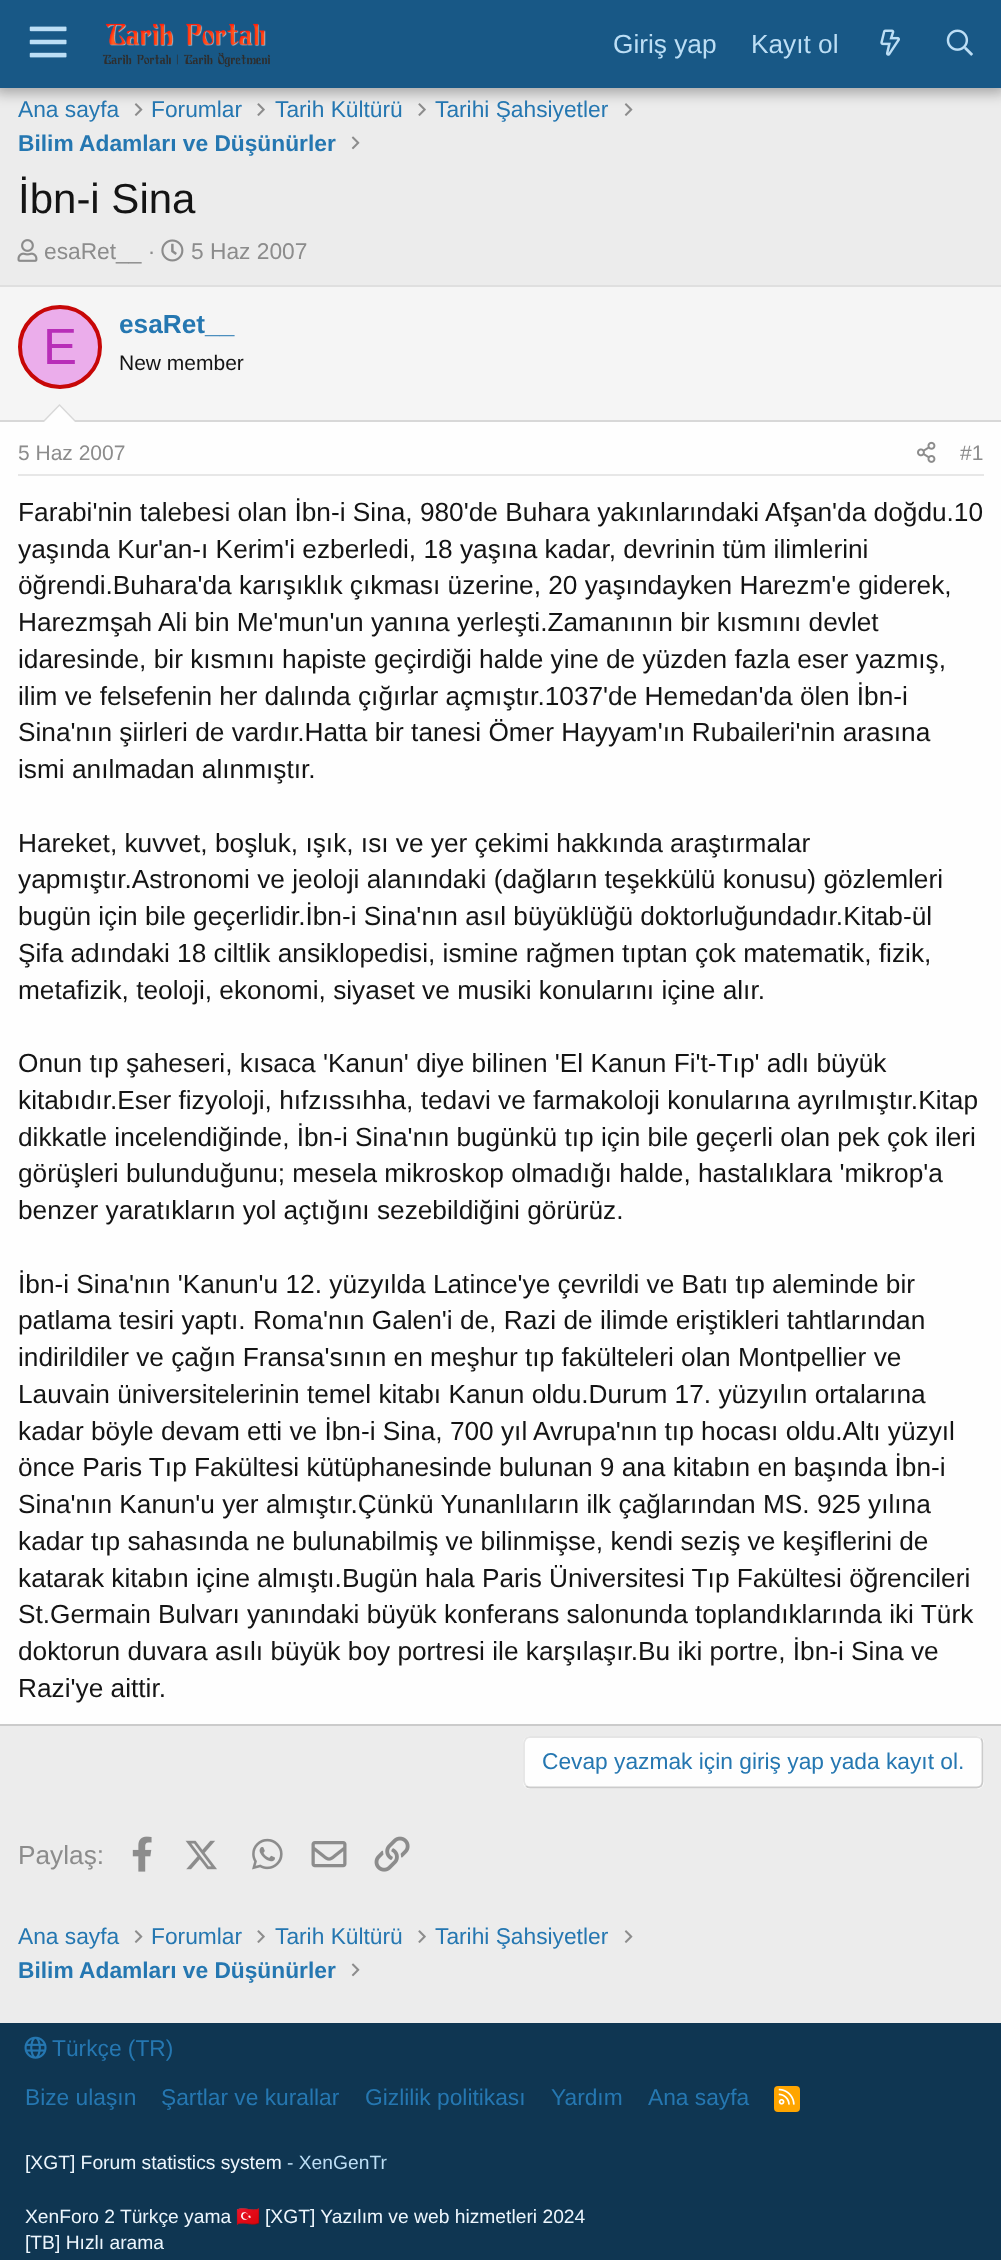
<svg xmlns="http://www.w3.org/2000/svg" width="1001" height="2260">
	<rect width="100%" height="100%" fill="#ECECEC" />
	<image x="134" y="103" width="9" height="13" href="assets/img5.png" />
	<image x="257" y="103" width="8" height="13" href="assets/img6.png" />
	<image x="418" y="103" width="8" height="13" href="assets/img6.png" />
	<image x="624" y="103" width="9" height="13" href="assets/img5.png" />
	<rect x="-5" y="-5" width="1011" height="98" fill="#000000" fill-opacity="0.3" filter="blur(7px)" />
	<rect x="0" y="0" width="1001" height="88" fill="#185886" />
	<image x="29" y="26" width="38" height="32" href="assets/img1.png" />
	<image x="102" y="23" width="168" height="44" href="assets/img2.png" />
	<g font-family="Liberation Sans" font-size="26.25" fill="#BCDEF5">
		<text x="613" y="53">Giriş yap</text>
		<text x="751" y="53">Kayıt ol</text>
	</g>
	<image x="880" y="29" width="20" height="27" href="assets/img3.png" />
	<image x="946" y="29" width="27" height="27" href="assets/img4.png" />
	<g font-family="Liberation Sans" font-size="22.75" fill="#2577B1">
		<text x="18" y="117">Ana sayfa</text>
		<text x="151" y="117">Forumlar</text>
		<text x="275" y="117">Tarih Kültürü</text>
		<text x="435" y="117">Tarihi Şahsiyetler</text>
	</g>
	<text x="18" y="151" font-family="Liberation Sans" font-size="22.75" font-weight="700" fill="#2577B1">Bilim Adamları ve Düşünürler</text>
	<image x="351" y="136" width="9" height="14" href="assets/img7.png" />
	<text x="18" y="213" font-family="Liberation Sans" font-size="42" fill="#141414">İbn-i Sina</text>
	<image x="17" y="239" width="21" height="23" href="assets/img8.png" />
	<text x="44" y="259" font-family="Liberation Sans" font-size="22.75" fill="#8C8C8C">esaRet__ ·</text>
	<image x="161" y="239" width="23" height="23" href="assets/img9.png" />
	<text x="191" y="259" font-family="Liberation Sans" font-size="22.75" fill="#8C8C8C">5 Haz 2007</text>
	<rect x="0" y="422" width="1001" height="1302" fill="#FEFEFE" />
	<rect x="0" y="285" width="1001" height="2" fill="#DFDFDF" />
	<rect x="0" y="1724" width="1001" height="2" fill="#CBCBCB" />
	<rect x="0" y="287" width="1001" height="133" fill="#F5F5F5" />
	<rect x="0" y="420" width="1001" height="2" fill="#D8D8D8" />
	<circle cx="60" cy="347" r="40" fill="#EBADEB" stroke="#C70707" stroke-width="4" />
	<text x="43" y="364" font-family="Liberation Sans" font-size="51" fill="#B82EB8">E</text>
	<text x="119" y="333" font-family="Liberation Sans" font-size="26.25" font-weight="700" fill="#2577B1">esaRet__</text>
	<text x="119" y="370" font-family="Liberation Sans" font-size="21" fill="#141414">New member</text>
	<path d="M77 422H42L59.5 404Z" fill="#D8D8D8" />
	<path d="M75 422H44L59.5 406Z" fill="#FEFEFE" />
	<rect x="18" y="474" width="966" height="2" fill="#E7E7E7" />
	<text x="18" y="460" font-family="Liberation Sans" font-size="21" fill="#8C8C8C">5 Haz 2007</text>
	<image x="917" y="441" width="19" height="22" href="assets/img10.png" />
	<text x="960" y="460" font-family="Liberation Sans" font-size="21" fill="#8C8C8C">#1</text>
	<g font-family="Liberation Sans" font-size="26.25" fill="#141414">
		<text x="18" y="521">Farabi'nin talebesi olan İbn-i Sina, 980'de Buhara yakınlarındaki Afşan'da doğdu.10</text>
		<text x="18" y="558">yaşında Kur'an-ı Kerim'i ezberledi, 18 yaşına kadar, devrinin tüm ilimlerini</text>
		<text x="18" y="594">öğrendi.Buhara'da karışıklık çıkması üzerine, 20 yaşındayken Harezm'e giderek,</text>
		<text x="18" y="631">Harezmşah Ali bin Me'mun'un yanına yerleşti.Zamanının bir kısmını devlet</text>
		<text x="18" y="668">idaresinde, bir kısmını hapiste geçirdiği halde yine de yüzden fazla eser yazmış,</text>
		<text x="18" y="705">ilim ve felsefenin her dalında çığırlar açmıştır.1037'de Hemedan'da ölen İbn-i</text>
		<text x="18" y="741">Sina'nın şiirleri de vardır.Hatta bir tanesi Ömer Hayyam'ın Rubaileri'nin arasına</text>
		<text x="18" y="778">ismi anılmadan alınmıştır.</text>
		<text x="18" y="852">Hareket, kuvvet, boşluk, ışık, ısı ve yer çekimi hakkında araştırmalar</text>
		<text x="18" y="888">yapmıştır.Astronomi ve jeoloji alanındaki (dağların teşekkülü konusu) gözlemleri</text>
		<text x="18" y="925">bugün için bile geçerlidir.İbn-i Sina'nın asıl büyüklüğü doktorluğundadır.Kitab-ül</text>
		<text x="18" y="962">Şifa adındaki 18 ciltlik ansiklopedisi, ismine rağmen tıptan çok matematik, fizik,</text>
		<text x="18" y="999">metafizik, teoloji, ekonomi, siyaset ve musiki konularını içine alır.</text>
		<text x="18" y="1072">Onun tıp şaheseri, kısaca 'Kanun' diye bilinen 'El Kanun Fi't-Tıp' adlı büyük</text>
		<text x="18" y="1109">kitabıdır.Eser fizyoloji, hıfzıssıhha, tedavi ve farmakoloji konularına ayrılmıştır.Kitap</text>
		<text x="18" y="1146">dikkatle incelendiğinde, İbn-i Sina'nın bugünkü tıp için bile geçerli olan pek çok ileri</text>
		<text x="18" y="1182">görüşleri bulunduğunu; mesela mikroskop olmadığı halde, hastalıklara 'mikrop'a</text>
		<text x="18" y="1219">benzer yaratıkların yol açtığını sezebildiğini görürüz.</text>
		<text x="18" y="1293">İbn-i Sina'nın 'Kanun'u 12. yüzyılda Latince'ye çevrildi ve Batı tıp aleminde bir</text>
		<text x="18" y="1329">patlama tesiri yaptı. Roma'nın Galen'i de, Razi de ilimde eriştikleri tahtlarından</text>
		<text x="18" y="1366">indirildiler ve çağın Fransa'sının en meşhur tıp fakülteleri olan Montpellier ve</text>
		<text x="18" y="1403">Lauvain üniversitelerinin temel kitabı Kanun oldu.Durum 17. yüzyılın ortalarına</text>
		<text x="18" y="1440">kadar böyle devam etti ve İbn-i Sina, 700 yıl Avrupa'nın tıp hocası oldu.Altı yüzyıl</text>
		<text x="18" y="1476">önce Paris Tıp Fakültesi kütüphanesinde bulunan 9 ana kitabın en başında İbn-i</text>
		<text x="18" y="1513">Sina'nın Kanun'u yer almıştır.Çünkü Yunanlıların ilk çağlarından MS. 925 yılına</text>
		<text x="18" y="1550">kadar tıp sahasında ne bulunabilmiş ve bilinmişse, kendi seziş ve keşiflerini de</text>
		<text x="18" y="1587">katarak kitabın içine almıştı.Bugün hala Paris Üniversitesi Tıp Fakültesi öğrencileri</text>
		<text x="18" y="1623">St.Germain Bulvarı yanındaki büyük konferans salonunda toplandıklarında iki Türk</text>
		<text x="18" y="1660">doktorun duvara asılı büyük boy portresi ile karşılaşır.Bu iki portre, İbn-i Sina ve</text>
		<text x="18" y="1697">Razi'ye aittir.</text>
	</g>
	<rect x="523" y="1736" width="461" height="53" rx="7" fill="#FEFEFE" />
	<path d="M981 1738.5C982 1740 982.5 1741.5 982.5 1743V1781.5C982.5 1783 982 1784.5 981 1786C979.5 1787 978 1787.5 976.5 1787.5H530C528.5 1787.5 527 1787 526 1786" fill="none" stroke="#CBCBCB" stroke-width="1.8" />
	<path d="M526 1786C525 1784.5 524 1783 524 1781.5V1743C524 1741.5 525 1740 526 1738.5C527 1737.5 528.5 1737 530 1737H976.5C978 1737 979.5 1737.5 981 1738.5" fill="none" stroke="#E5E5E5" stroke-width="1.8" />
	<text x="542" y="1769" font-family="Liberation Sans" font-size="22.75" fill="#2577B1">Cevap yazmak için giriş yap yada kayıt ol.</text>
	<text x="18" y="1864" font-family="Liberation Sans" font-size="26.25" fill="#8C8C8C">Paylaş:</text>
	<image x="132" y="1836" width="20" height="36" href="assets/img11.png" />
	<image x="185" y="1840" width="32" height="30" href="assets/img12.png" />
	<image x="252" y="1838" width="31" height="32" href="assets/img13.png" />
	<image x="311" y="1841" width="36" height="27" href="assets/img14.png" />
	<image x="374" y="1836" width="36" height="36" href="assets/img15.png" />
	<text x="18" y="1944" font-family="Liberation Sans" font-size="22.75" fill="#2577B1">Ana sayfa</text>
	<image x="134" y="1930" width="9" height="13" href="assets/img5.png" />
	<text x="151" y="1944" font-family="Liberation Sans" font-size="22.75" fill="#2577B1">Forumlar</text>
	<image x="257" y="1930" width="8" height="13" href="assets/img6.png" />
	<text x="275" y="1944" font-family="Liberation Sans" font-size="22.75" fill="#2577B1">Tarih Kültürü</text>
	<image x="418" y="1930" width="8" height="13" href="assets/img6.png" />
	<text x="435" y="1944" font-family="Liberation Sans" font-size="22.75" fill="#2577B1">Tarihi Şahsiyetler</text>
	<image x="624" y="1930" width="9" height="13" href="assets/img5.png" />
	<text x="18" y="1978" font-family="Liberation Sans" font-size="22.75" font-weight="700" fill="#2577B1">Bilim Adamları ve Düşünürler</text>
	<image x="351" y="1963" width="9" height="14" href="assets/img7.png" />
	<rect x="0" y="2023" width="1001" height="237" fill="#0F3652" />
	<image x="24" y="2036" width="23" height="23" href="assets/img16.png" />
	<g font-family="Liberation Sans" font-size="22.75" fill="#2577B1">
		<text x="52" y="2056">Türkçe (TR)</text>
		<text x="25" y="2105">Bize ulaşın</text>
		<text x="161" y="2105">Şartlar ve kurallar</text>
		<text x="365" y="2105">Gizlilik politikası</text>
		<text x="551" y="2105">Yardım</text>
		<text x="648" y="2105">Ana sayfa</text>
	</g>
	<rect x="774" y="2086" width="26" height="26" rx="4" fill="#FFA500" />
	<image x="778" y="2088" width="17" height="17" href="assets/img17.png" />
	<text x="25" y="2169" font-family="Liberation Sans" font-size="19.25" fill="#EDF6FD">[XGT] Forum statistics system</text>
	<text x="287" y="2169" font-family="Liberation Sans" font-size="19.25" fill="#BCDEF5">- XenGenTr</text>
	<text x="25" y="2223" font-family="Liberation Sans" font-size="19.25" fill="#EDF6FD">XenForo 2 Türkçe yama</text>
	<text x="236" y="2223" font-family="Noto Color Emoji" font-size="19.25" fill="#EDF6FD">🇹🇷</text>
	<g font-family="Liberation Sans" font-size="19.25" fill="#EDF6FD">
		<text x="265" y="2223">[XGT] Yazılım ve web hizmetleri 2024</text>
		<text x="25" y="2249">[TB] Hızlı arama</text>
	</g>
</svg>
